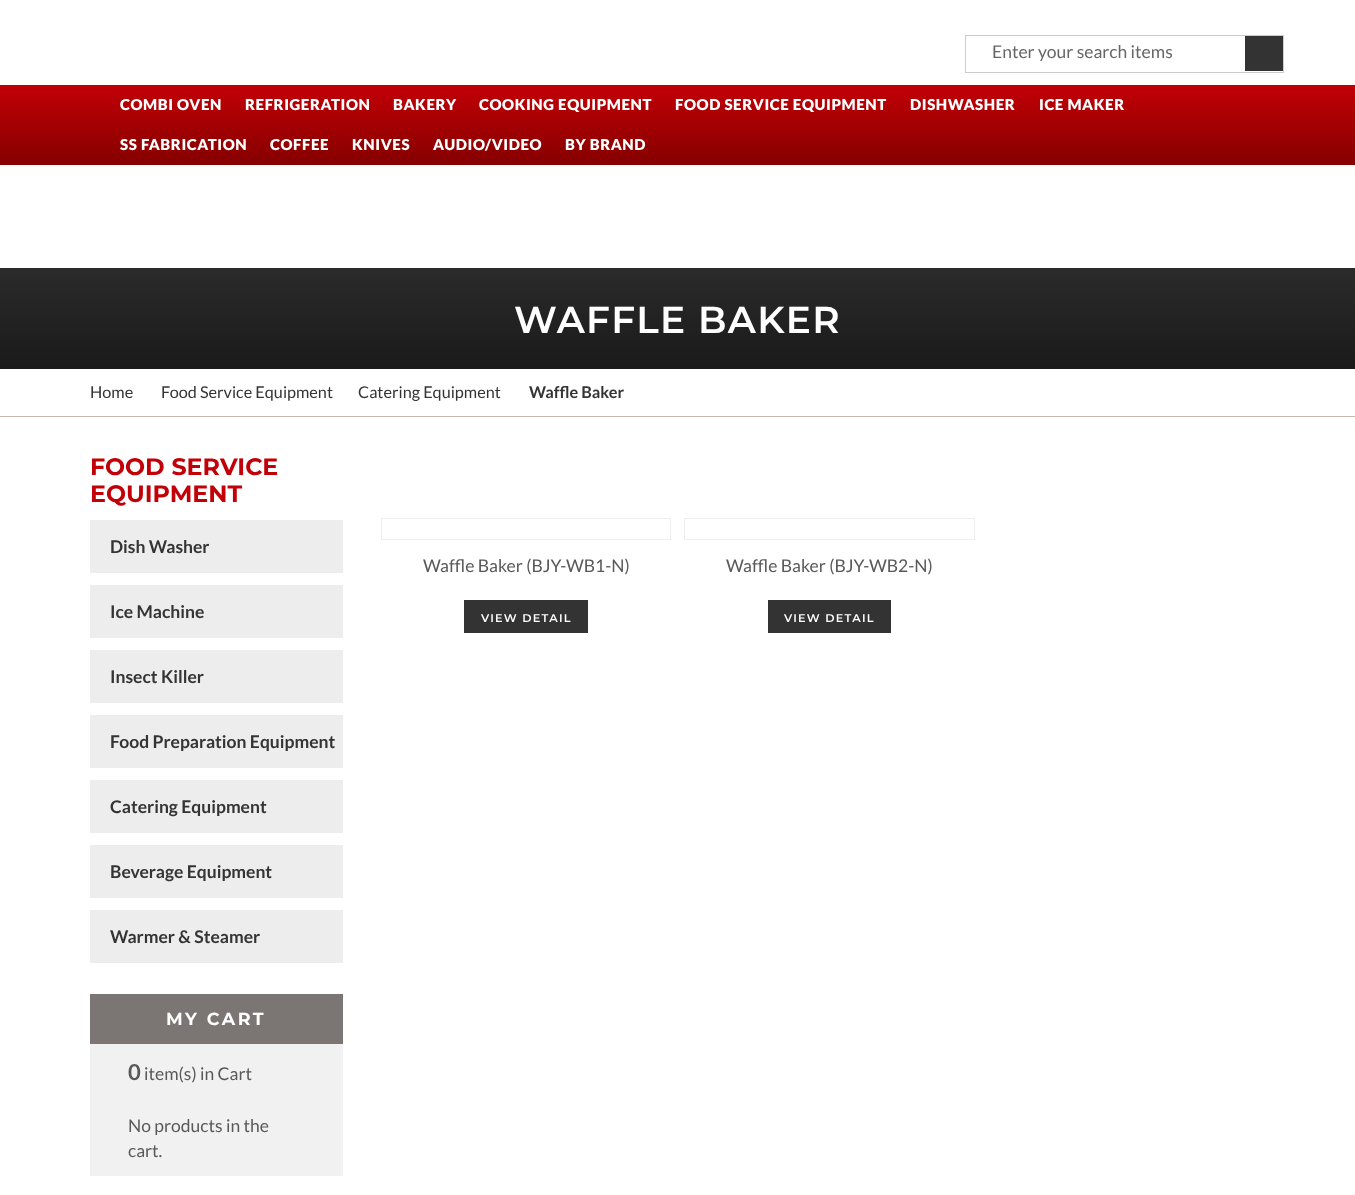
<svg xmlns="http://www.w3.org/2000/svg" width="1355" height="1195">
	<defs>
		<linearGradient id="g1" gradientUnits="userSpaceOnUse" x1="678" y1="85" x2="678" y2="165"><stop offset="0" stop-color="#C20006" /><stop offset="1" stop-color="#850000" /></linearGradient>
		<linearGradient id="g2" gradientUnits="userSpaceOnUse" x1="678" y1="267" x2="678" y2="369"><stop offset="0" stop-color="#2B2B2B" /><stop offset="1" stop-color="#1A1A1A" /></linearGradient>
	</defs>
	<rect width="100%" height="100%" fill="#FFFFFF" />
	<rect x="965.5" y="35.5" width="318" height="37" fill="none" stroke="#CCCCCC" />
	<text x="992" y="58" font-family="Lato" font-size="17.5" fill="#666666">Enter your search items</text>
	<rect x="1245" y="36" width="38" height="35" fill="#333333" />
	<rect x="0" y="85" width="1355" height="80" fill="url(#g1)" />
	<g font-family="Lato" font-size="15" font-weight="900" letter-spacing="0.6" fill="#FFFFFF">
		<text x="120" y="110">COMBI OVEN</text>
		<text x="245" y="110">REFRIGERATION</text>
		<text x="393" y="110">BAKERY</text>
		<text x="479" y="110">COOKING EQUIPMENT</text>
		<text x="675" y="110">FOOD SERVICE EQUIPMENT</text>
		<text x="910" y="110">DISHWASHER</text>
		<text x="1039" y="110">ICE MAKER</text>
		<text x="120" y="150">SS FABRICATION</text>
		<text x="270" y="150">COFFEE</text>
		<text x="352" y="150">KNIVES</text>
		<text x="433" y="150">AUDIO/VIDEO</text>
		<text x="565" y="150">BY BRAND</text>
	</g>
	<rect x="0" y="268" width="1355" height="101" fill="url(#g2)" />
	<text x="514" y="333" font-family="Montserrat" font-size="37.5" font-weight="600" letter-spacing="1.25" fill="#FFFFFF">WAFFLE BAKER</text>
	<rect x="0" y="416" width="1355" height="1" fill="#C3B9B1" />
	<g font-family="Lato" font-size="16.25" fill="#343434">
		<text x="90" y="398">Home</text>
		<text x="161" y="398">Food Service Equipment</text>
		<text x="358" y="398">Catering Equipment</text>
	</g>
	<text x="529" y="398" font-family="Lato" font-size="16.25" font-weight="700" fill="#343434">Waffle Baker</text>
	<g font-family="Montserrat" font-size="23.75" font-weight="700" fill="#C20008">
		<text x="90" y="475">FOOD SERVICE</text>
		<text x="90" y="502">EQUIPMENT</text>
	</g>
	<rect x="90" y="520" width="253" height="53" fill="#EDEDED" />
	<text x="110" y="553" font-family="Lato" font-size="17.5" font-weight="700" fill="#343434">Dish Washer</text>
	<rect x="90" y="585" width="253" height="53" fill="#EDEDED" />
	<text x="110" y="618" font-family="Lato" font-size="17.5" font-weight="700" fill="#343434">Ice Machine</text>
	<rect x="90" y="650" width="253" height="53" fill="#EDEDED" />
	<text x="110" y="683" font-family="Lato" font-size="17.5" font-weight="700" fill="#343434">Insect Killer</text>
	<rect x="90" y="715" width="253" height="53" fill="#EDEDED" />
	<text x="110" y="748" font-family="Lato" font-size="17.5" font-weight="700" fill="#343434">Food Preparation Equipment</text>
	<rect x="90" y="780" width="253" height="53" fill="#EDEDED" />
	<text x="110" y="813" font-family="Lato" font-size="17.5" font-weight="700" fill="#343434">Catering Equipment</text>
	<rect x="90" y="845" width="253" height="53" fill="#EDEDED" />
	<text x="110" y="878" font-family="Lato" font-size="17.5" font-weight="700" fill="#343434">Beverage Equipment</text>
	<rect x="90" y="910" width="253" height="53" fill="#EDEDED" />
	<text x="110" y="943" font-family="Lato" font-size="17.5" font-weight="700" fill="#343434">Warmer &amp; Steamer</text>
	<rect x="90" y="1044" width="253" height="132" fill="#F2F1F1" />
	<rect x="90" y="994" width="253" height="50" fill="#7B7673" />
	<text x="166" y="1025" font-family="Montserrat" font-size="17.5" font-weight="700" letter-spacing="2.5" fill="#FFFFFF">MY CART</text>
	<text x="128" y="1080" font-family="Lato" font-size="22" font-weight="700" fill="#58595B">0</text>
	<g font-family="Lato" font-size="17.5" fill="#58595B">
		<text x="144" y="1080">item(s) in Cart</text>
		<text x="128" y="1132">No products in the</text>
		<text x="128" y="1157">cart.</text>
	</g>
	<rect x="381.5" y="518.5" width="289" height="21" fill="none" stroke="#EEEEEE" />
	<text x="423" y="572" font-family="Lato" font-size="17.5" fill="#58595B">Waffle Baker (BJY-WB1-N)</text>
	<rect x="464" y="600" width="124" height="33" fill="#333333" />
	<text x="481" y="622" font-family="Montserrat" font-size="11.25" font-weight="600" letter-spacing="1.25" fill="#FFFFFF">VIEW DETAIL</text>
	<rect x="684.5" y="518.5" width="290" height="21" fill="none" stroke="#EEEEEE" />
	<text x="726" y="572" font-family="Lato" font-size="17.5" fill="#58595B">Waffle Baker (BJY-WB2-N)</text>
	<rect x="768" y="600" width="123" height="33" fill="#333333" />
	<text x="784" y="622" font-family="Montserrat" font-size="11.25" font-weight="600" letter-spacing="1.25" fill="#FFFFFF">VIEW DETAIL</text>
</svg>
